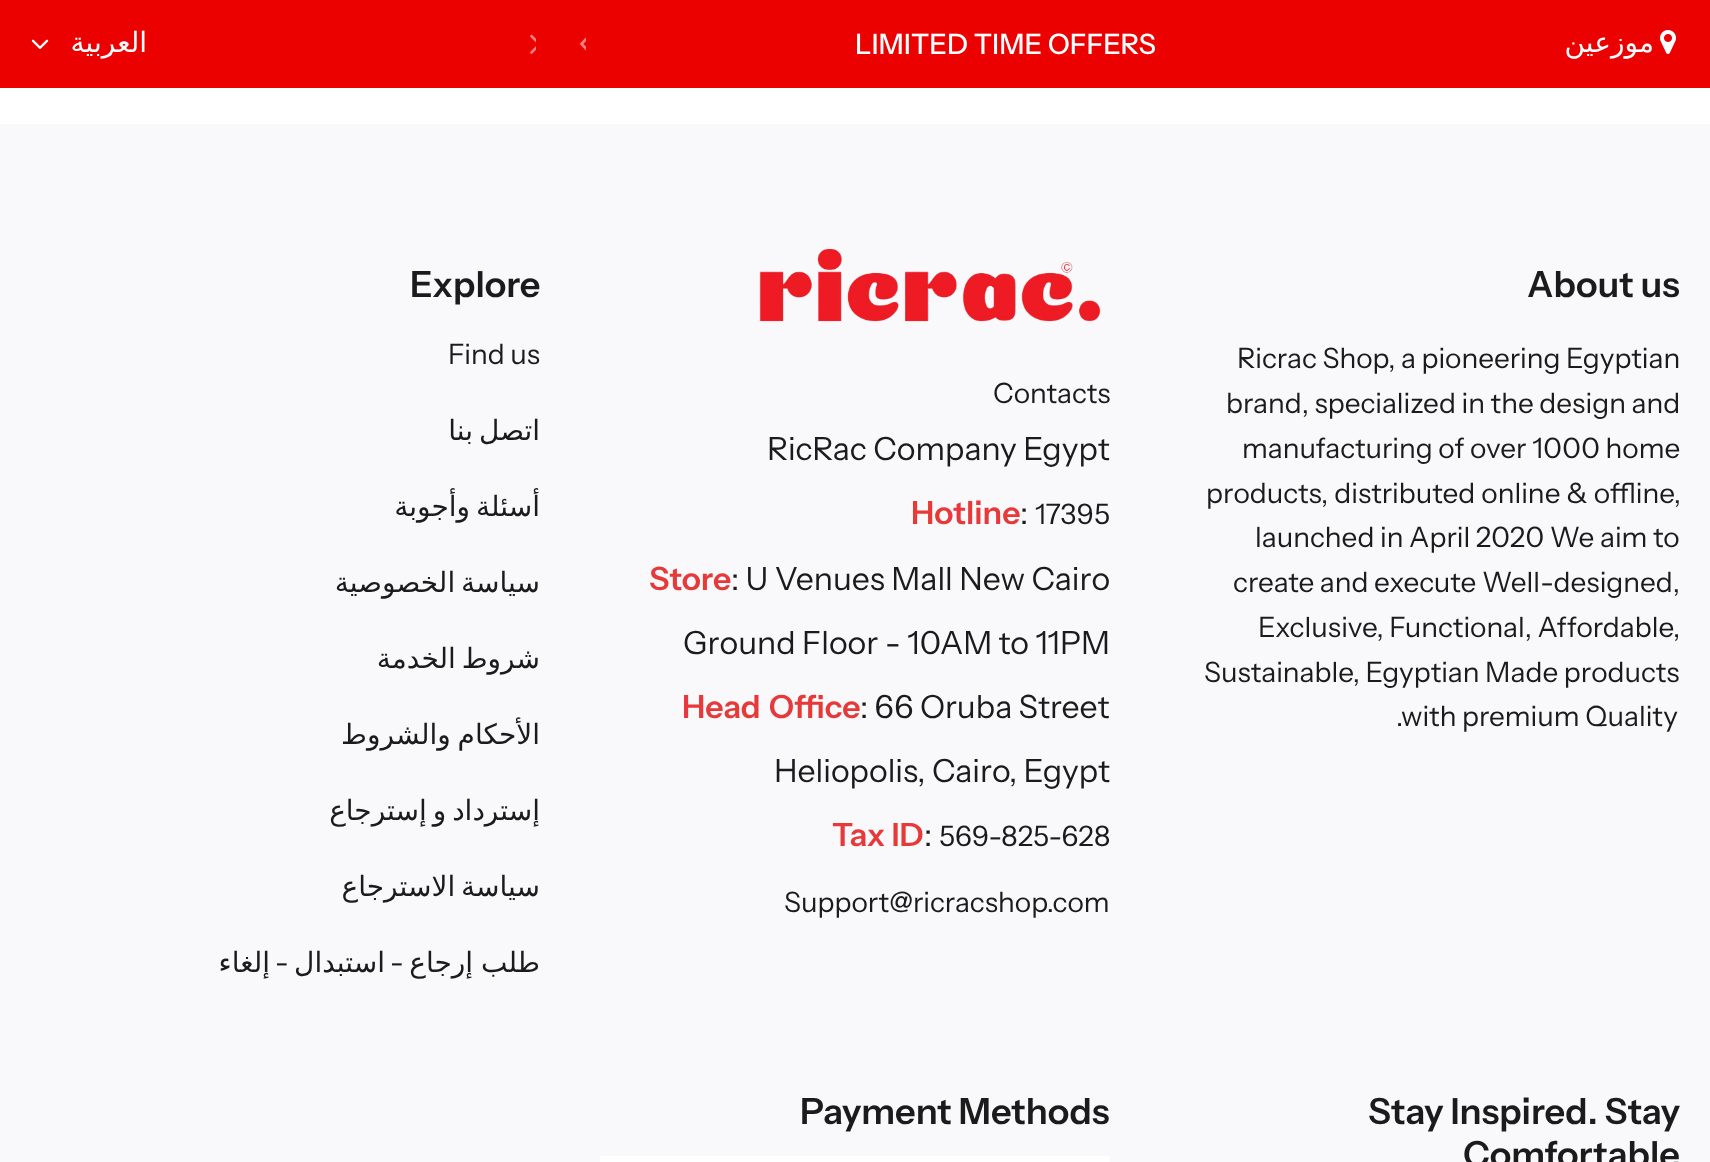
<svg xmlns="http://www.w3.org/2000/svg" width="1710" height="1162">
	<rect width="100%" height="100%" fill="#FFFFFF" />
	<rect x="0" y="0" width="1710" height="88" fill="#EC0101" />
	<image x="31" y="39" width="18" height="10" href="assets/img1.png" />
	<text x="147" y="52" font-family="DejaVu Sans" font-size="28" direction="rtl" fill="#FFFFFF">العربية</text>
	<image x="530" y="34" width="6" height="20" href="assets/img2.png" />
	<image x="580" y="37" width="6" height="14" href="assets/img3.png" />
	<text x="855" y="54" font-family="Instrument Sans" font-size="28" font-weight="500" fill="#FFFFFF">LIMITED TIME OFFERS</text>
	<text x="1654" y="52" font-family="DejaVu Sans" font-size="28" direction="rtl" fill="#FFFFFF">موزعين</text>
	<image x="1660" y="30" width="16" height="24" href="assets/img4.png" />
	<rect x="0" y="124" width="1710" height="1038" fill="#F9F9FB" />
	<text x="410" y="297" font-family="Instrument Sans" font-size="36" font-weight="600" fill="#1B1B1B">Explore</text>
	<text x="448" y="364" font-family="Instrument Sans" font-size="28" fill="#1B1B1B">Find us</text>
	<g font-family="DejaVu Sans" font-size="28" direction="rtl" fill="#1B1B1B">
		<text x="540" y="440" word-spacing="-3">اتصل بنا</text>
		<text x="540" y="516" word-spacing="-3">أسئلة وأجوبة</text>
		<text x="540" y="592" word-spacing="-3">سياسة الخصوصية</text>
		<text x="540" y="668" word-spacing="-3">شروط الخدمة</text>
		<text x="540" y="744" word-spacing="-2">الأحكام والشروط</text>
		<text x="540" y="820" word-spacing="-3">إسترداد و إسترجاع</text>
		<text x="540" y="896" word-spacing="-3">سياسة الاسترجاع</text>
		<text x="270" y="972">إلغاء</text>
	</g>
	<text x="289" y="972" font-family="Instrument Sans" font-size="28" direction="rtl" fill="#1B1B1B">-</text>
	<text x="385" y="972" font-family="DejaVu Sans" font-size="28" direction="rtl" fill="#1B1B1B">استبدال</text>
	<text x="404" y="972" font-family="Instrument Sans" font-size="28" direction="rtl" fill="#1B1B1B">-</text>
	<text x="540" y="972" word-spacing="-1" font-family="DejaVu Sans" font-size="28" direction="rtl" fill="#1B1B1B">طلب إرجاع</text>
	<image x="759" y="248" width="342" height="74" href="assets/img5.png" />
	<text x="993" y="403" font-family="Instrument Sans" font-size="28" fill="#1B1B1B">Contacts</text>
	<text x="767" y="460" font-family="Instrument Sans" font-size="32" fill="#1B1B1B">RicRac Company Egypt</text>
	<text x="911" y="524" font-family="Instrument Sans" font-size="32" font-weight="600" fill="#E7393A">Hotline</text>
	<text x="1020" y="524" font-family="Instrument Sans" font-size="32" fill="#1B1B1B">:</text>
	<text x="1035" y="524" font-family="Instrument Sans" font-size="28" fill="#1B1B1B">17395</text>
	<text x="649" y="590" font-family="Instrument Sans" font-size="32" font-weight="600" fill="#E7393A">Store</text>
	<g font-family="Instrument Sans" font-size="32" fill="#1B1B1B">
		<text x="731" y="590">: U Venues Mall New Cairo</text>
		<text x="683" y="654">Ground Floor - 10AM to 11PM</text>
	</g>
	<text x="682" y="718" word-spacing="2" font-family="Instrument Sans" font-size="32" font-weight="600" fill="#E7393A">Head Office</text>
	<g font-family="Instrument Sans" font-size="32" fill="#1B1B1B">
		<text x="860" y="718">: 66 Oruba Street</text>
		<text x="774" y="782">Heliopolis, Cairo, Egypt</text>
	</g>
	<text x="832" y="846" font-family="Instrument Sans" font-size="32" font-weight="600" fill="#E7393A">Tax ID</text>
	<text x="924" y="846" font-family="Instrument Sans" font-size="32" fill="#1B1B1B">:</text>
	<g font-family="Instrument Sans" font-size="28" fill="#1B1B1B">
		<text x="939" y="846">569-825-628</text>
		<text x="784" y="912">Support@ricracshop.com</text>
	</g>
	<text x="1527" y="297" font-family="Instrument Sans" font-size="36" font-weight="600" fill="#1B1B1B">About us</text>
	<g font-family="Instrument Sans" font-size="28" fill="#1B1B1B">
		<text x="1237" y="368">Ricrac Shop, a pioneering Egyptian</text>
		<text x="1226" y="413">brand, specialized in the design and</text>
		<text x="1242" y="458">manufacturing of over 1000 home</text>
		<text x="1206" y="503" word-spacing="0.5">products, distributed online &amp; offline,</text>
		<text x="1255" y="547">launched in April 2020 We aim to</text>
		<text x="1233" y="592">create and execute Well-designed,</text>
		<text x="1258" y="637">Exclusive, Functional, Affordable,</text>
		<text x="1204" y="682">Sustainable, Egyptian Made products</text>
		<text x="1396" y="726">.with premium Quality</text>
	</g>
	<text x="800" y="1124" font-family="Instrument Sans" font-size="36" font-weight="600" fill="#1B1B1B">Payment Methods</text>
	<rect x="600" y="1156" width="510" height="6" fill="#FFFFFF" />
	<g font-family="Instrument Sans" font-size="36" font-weight="600" fill="#1B1B1B">
		<text x="1368" y="1124">Stay Inspired. Stay</text>
		<text x="1463" y="1167">Comfortable</text>
	</g>
</svg>
